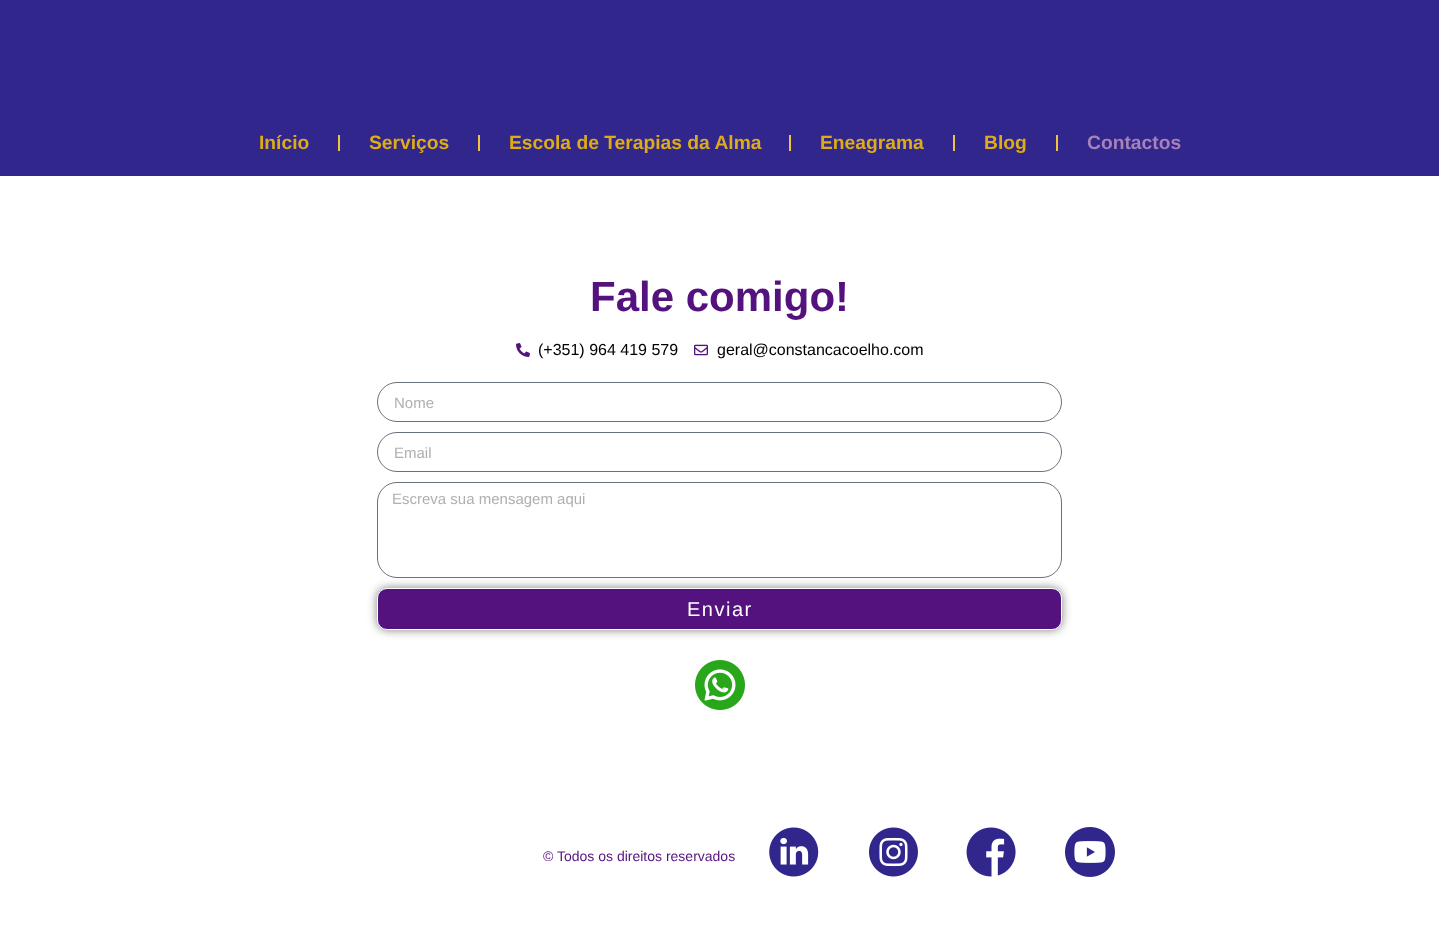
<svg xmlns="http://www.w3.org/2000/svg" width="1439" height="941">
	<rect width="100%" height="100%" fill="#FFFFFF" />
	<rect x="0" y="0" width="1439" height="176" fill="#30268C" />
	<text x="259" y="149" font-family="Liberation Sans" font-size="19.25" font-weight="700" fill="#DDAC17">Início</text>
	<rect x="338" y="135" width="2" height="16" fill="#ECC440" />
	<text x="369" y="149" font-family="Liberation Sans" font-size="19.25" font-weight="700" fill="#DDAC17">Serviços</text>
	<rect x="478" y="135" width="2" height="16" fill="#ECC440" />
	<text x="509" y="149" font-family="Liberation Sans" font-size="19.25" font-weight="700" fill="#DDAC17">Escola de Terapias da Alma</text>
	<rect x="789" y="135" width="2" height="16" fill="#ECC440" />
	<text x="820" y="149" font-family="Liberation Sans" font-size="19.25" font-weight="700" fill="#DDAC17">Eneagrama</text>
	<rect x="953" y="135" width="2" height="16" fill="#ECC440" />
	<text x="984" y="149" font-family="Liberation Sans" font-size="19.25" font-weight="700" fill="#DDAC17">Blog</text>
	<rect x="1056" y="135" width="2" height="16" fill="#ECC440" />
	<text x="1087" y="149" font-family="Liberation Sans" font-size="19.25" font-weight="700" fill="#A582B8">Contactos</text>
	<text x="590" y="311" font-family="Liberation Sans" font-size="42" font-weight="700" fill="#54127F">Fale comigo!</text>
	<image x="516" y="343" width="14" height="14" href="assets/img1.png" />
	<text x="538" y="355" font-family="Liberation Sans" font-size="16" fill="#000000">(+351) 964 419 579</text>
	<image x="694" y="344" width="14" height="12" href="assets/img2.png" />
	<text x="717" y="355" font-family="Liberation Sans" font-size="16" fill="#000000">geral@constancacoelho.com</text>
	<rect x="377.5" y="382.5" width="684" height="39" rx="19.5" fill="none" stroke="#69727D" />
	<text x="394" y="408" font-family="Liberation Sans" font-size="15" fill="#AFAFAF">Nome</text>
	<rect x="377.5" y="432.5" width="684" height="39" rx="19.5" fill="none" stroke="#69727D" />
	<text x="394" y="458" font-family="Liberation Sans" font-size="15" fill="#AFAFAF">Email</text>
	<rect x="377.5" y="482.5" width="684" height="95" rx="19.5" fill="none" stroke="#69727D" />
	<text x="392" y="504" font-family="Liberation Sans" font-size="15" fill="#AFAFAF">Escreva sua mensagem aqui</text>
	<rect x="377" y="588" width="685" height="42" rx="10" fill="#000000" fill-opacity="0.5" filter="blur(5px)" />
	<rect x="377.5" y="588.5" width="684" height="41" rx="9.5" fill="#54127F" stroke="#FFFFFF" />
	<text x="687" y="616" font-family="Liberation Sans" font-size="20" letter-spacing="1.5" fill="#FFFFFF">Enviar</text>
	<image x="695" y="660" width="50" height="50" href="assets/img3.png" />
	<text x="543" y="861" font-family="Liberation Sans" font-size="14" fill="#54127F">© Todos os direitos reservados</text>
	<image x="769" y="827" width="50" height="50" href="assets/img4.png" />
	<image x="869" y="827" width="49" height="50" href="assets/img5.png" />
	<image x="966" y="827" width="50" height="50" href="assets/img6.png" />
	<image x="1065" y="827" width="50" height="50" href="assets/img7.png" />
</svg>
